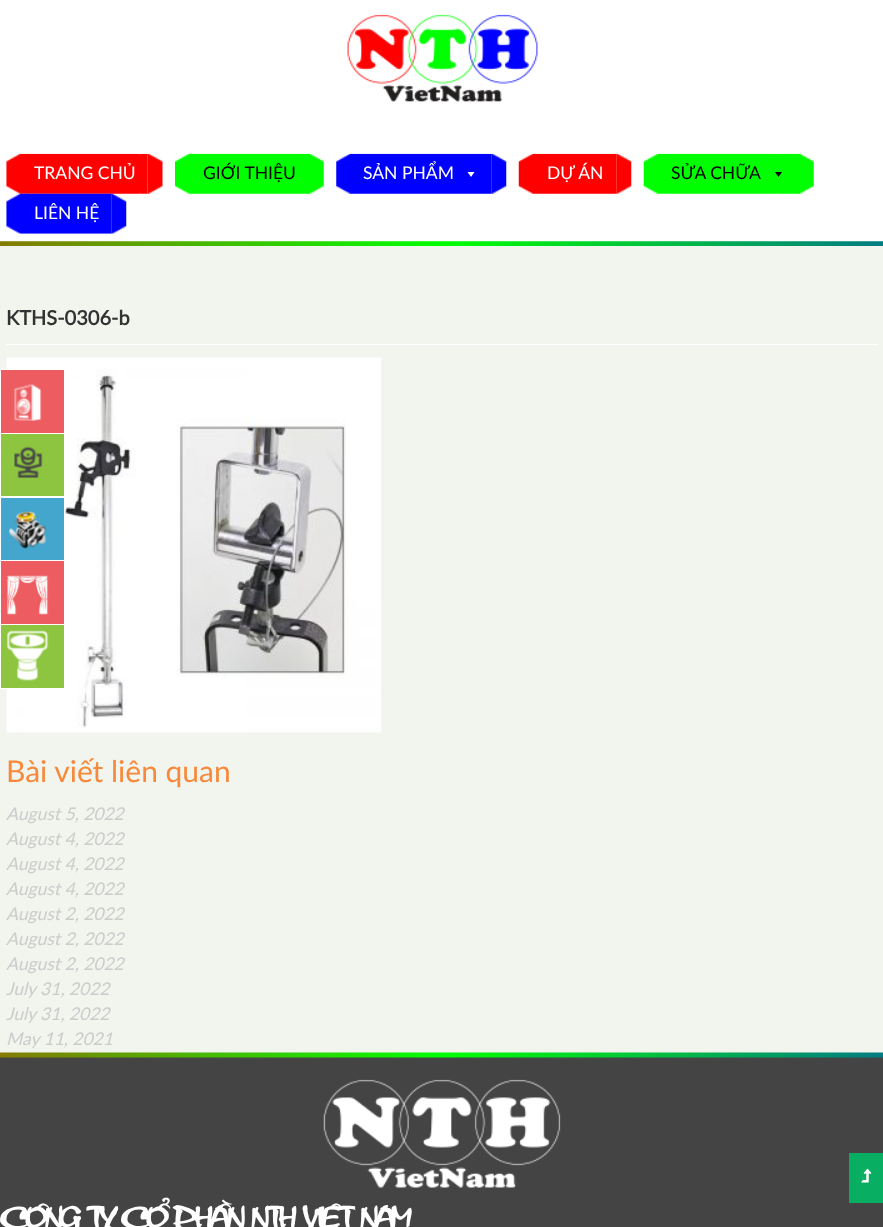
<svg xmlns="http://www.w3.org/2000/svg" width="883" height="1227">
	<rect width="100%" height="100%" fill="#FFFFFF" />
	<image x="0" y="241" width="883" height="5" href="assets/img1.png" />
	<image x="347" y="14" width="191" height="88" href="assets/img2.png" />
	<image x="147" y="153" width="16" height="41" href="assets/img3.png" />
	<image x="6" y="153" width="142" height="41" href="assets/img4.png" />
	<text x="34" y="179" font-family="Lato" font-size="17.5" fill="#FFFFFF">TRANG CHỦ</text>
	<image x="307" y="153" width="17" height="41" href="assets/img5.png" />
	<image x="175" y="153" width="134" height="41" href="assets/img6.png" />
	<text x="203" y="179" font-family="Lato" font-size="17.5" fill="#000000">GIỚI THIỆU</text>
	<image x="491" y="153" width="16" height="41" href="assets/img7.png" />
	<image x="336" y="153" width="156" height="41" href="assets/img8.png" />
	<text x="363" y="179" font-family="Lato" font-size="17.5" fill="#FFFFFF">SẢN PHẨM</text>
	<path d="M474.5 172L471 177L467.5 172Z" fill="#FFFFFF" />
	<image x="616" y="153" width="16" height="41" href="assets/img9.png" />
	<image x="518" y="153" width="99" height="41" href="assets/img10.png" />
	<text x="547" y="179" font-family="Lato" font-size="17.5" fill="#FFFFFF">DỰ ÁN</text>
	<image x="797" y="153" width="17" height="41" href="assets/img5.png" />
	<image x="643" y="153" width="156" height="41" href="assets/img11.png" />
	<text x="671" y="179" font-family="Lato" font-size="17.5" fill="#000000">SỬA CHỮA</text>
	<path d="M782 172L778.5 177L775 172Z" fill="#000000" />
	<image x="111" y="193" width="16" height="41" href="assets/img12.png" />
	<image x="6" y="193" width="106" height="41" href="assets/img13.png" />
	<text x="34" y="219" font-family="Lato" font-size="17.5" fill="#FFFFFF">LIÊN HỆ</text>
	<rect x="0" y="246" width="883" height="807" fill="#F2F4EE" />
	<image x="6" y="357" width="376" height="376" href="assets/img19.png" />
	<rect x="0.5" y="369.5" width="64" height="319" fill="none" stroke="#FFFFFF" />
	<rect x="1" y="433" width="6" height="1" fill="#FFFFFF" />
	<rect x="1" y="370" width="63" height="63" fill="#ED5C60" />
	<image x="14" y="383" width="28" height="38" href="assets/img14.png" />
	<rect x="1" y="496" width="6" height="1" fill="#FFFFFF" />
	<rect x="1" y="434" width="63" height="62" fill="#8EC540" />
	<image x="14" y="446" width="29" height="32" href="assets/img15.png" />
	<rect x="1" y="560" width="6" height="1" fill="#FFFFFF" />
	<rect x="1" y="498" width="63" height="62" fill="#44A6CC" />
	<image x="9" y="511" width="38" height="38" href="assets/img16.png" />
	<rect x="1" y="624" width="6" height="1" fill="#FFFFFF" />
	<rect x="1" y="561" width="63" height="63" fill="#ED5C60" />
	<image x="7" y="575" width="42" height="40" href="assets/img17.png" />
	<rect x="1" y="625" width="63" height="63" fill="#8EC540" />
	<image x="7" y="630" width="42" height="51" href="assets/img18.png" />
	<rect x="6" y="344" width="872" height="1" fill="#FFFFFF" />
	<text x="6" y="325" font-family="Lato" font-size="20" font-weight="700" fill="#333333">KTHS-0306-b</text>
	<text x="6" y="782" font-family="Lato" font-size="30" fill="#F6893B">Bài viết liên quan</text>
	<g font-family="Lato" font-size="17.5" font-style="italic" fill="#CCCCCC">
		<text x="6" y="820">August 5, 2022</text>
		<text x="6" y="845">August 4, 2022</text>
		<text x="6" y="870">August 4, 2022</text>
		<text x="6" y="895">August 4, 2022</text>
		<text x="6" y="920">August 2, 2022</text>
		<text x="6" y="945">August 2, 2022</text>
		<text x="6" y="970">August 2, 2022</text>
		<text x="6" y="995">July 31, 2022</text>
		<text x="6" y="1020">July 31, 2022</text>
		<text x="6" y="1045">May 11, 2021</text>
	</g>
	<rect x="0" y="1057" width="883" height="170" fill="#444444" />
	<rect x="849" y="1153" width="34" height="50" fill="#08AF63" />
	<image x="861" y="1168" width="11" height="15" href="assets/img20.png" />
	<image x="0" y="1052" width="883" height="6" href="assets/img21.png" />
	<image x="323" y="1079" width="238" height="109" href="assets/img22.png" />
	<text x="6" y="1225" font-family="'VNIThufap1'" font-size="22.5" font-weight="700" fill="#FFFFFF">COÂNG TY COÅ PHAÀN NTH VIEÄT NAM</text>
</svg>
